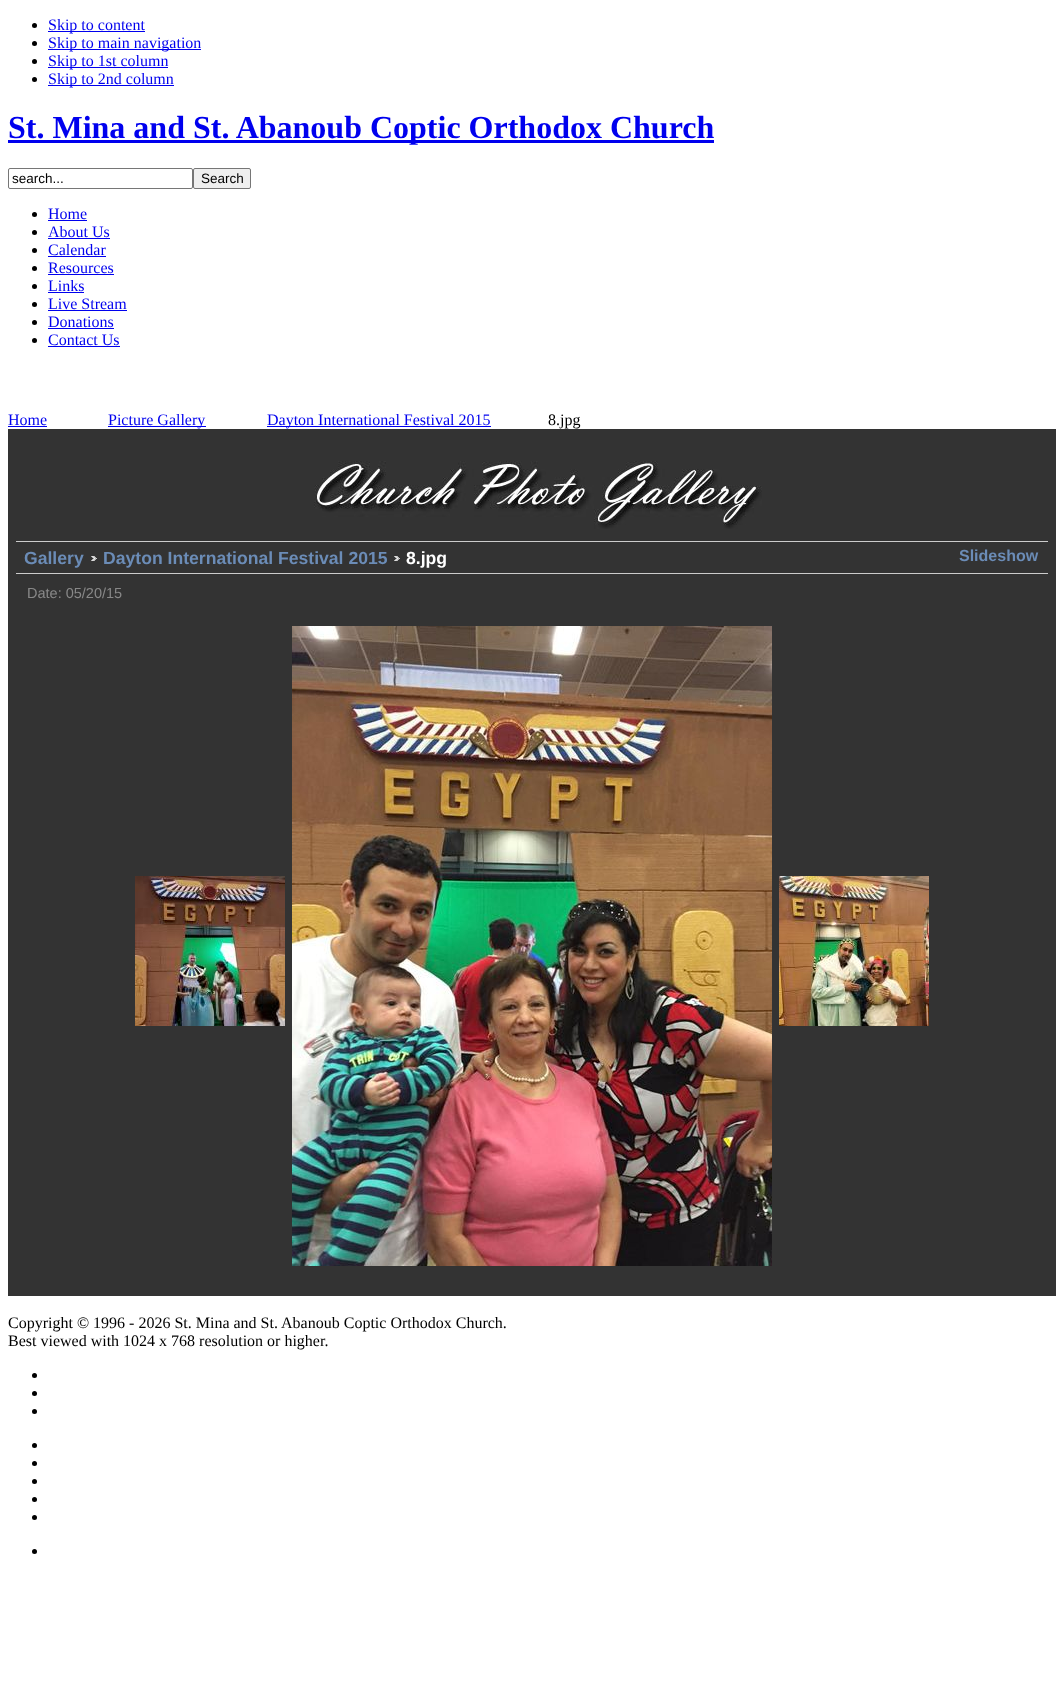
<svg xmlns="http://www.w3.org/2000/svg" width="1064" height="1690">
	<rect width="100%" height="100%" fill="#FFFFFF" />
	<circle cx="34.5" cy="25.5" r="2.5" fill="#000000" />
	<rect x="48" y="31" width="97" height="1" fill="#0000EE" />
	<text x="48" y="30" font-family="Liberation Serif" font-size="16" fill="#0000EE">Skip to content</text>
	<circle cx="34.5" cy="43.5" r="2.5" fill="#000000" />
	<rect x="48" y="49" width="153" height="1" fill="#0000EE" />
	<text x="48" y="48" font-family="Liberation Serif" font-size="16" fill="#0000EE">Skip to main navigation</text>
	<circle cx="34.5" cy="61.5" r="2.5" fill="#000000" />
	<rect x="48" y="67" width="120" height="1" fill="#0000EE" />
	<text x="48" y="66" font-family="Liberation Serif" font-size="16" fill="#0000EE">Skip to 1st column</text>
	<circle cx="34.5" cy="79.5" r="2.5" fill="#000000" />
	<rect x="48" y="85" width="126" height="1" fill="#0000EE" />
	<text x="48" y="84" font-family="Liberation Serif" font-size="16" fill="#0000EE">Skip to 2nd column</text>
	<rect x="8" y="140" width="706" height="3" fill="#0000EE" />
	<text x="8" y="138" font-family="Liberation Serif" font-size="32" font-weight="700" fill="#0000EE">St. Mina and St. Abanoub Coptic Orthodox Church</text>
	<rect x="8.5" y="168.5" width="184" height="20" rx="1.5" fill="none" stroke="#767676" />
	<text x="12" y="183" font-family="Liberation Sans" font-size="13.5" fill="#000000">search...</text>
	<rect x="193.5" y="168.5" width="57" height="20" rx="1.5" fill="#EFEFEF" stroke="#767676" />
	<text x="201" y="183" font-family="Liberation Sans" font-size="13.5" fill="#000000">Search</text>
	<circle cx="34.5" cy="214.5" r="2.5" fill="#000000" />
	<text x="48" y="219" font-family="Liberation Serif" font-size="16" fill="#0000EE">Home</text>
	<rect x="48" y="220" width="39" height="1" fill="#0000EE" />
	<circle cx="34.5" cy="232.5" r="2.5" fill="#000000" />
	<text x="48" y="237" font-family="Liberation Serif" font-size="16" fill="#0000EE">About Us</text>
	<rect x="48" y="238" width="62" height="1" fill="#0000EE" />
	<circle cx="34.5" cy="250.5" r="2.5" fill="#000000" />
	<text x="48" y="255" font-family="Liberation Serif" font-size="16" fill="#0000EE">Calendar</text>
	<rect x="48" y="256" width="58" height="1" fill="#0000EE" />
	<circle cx="34.5" cy="268.5" r="2.5" fill="#000000" />
	<text x="48" y="273" font-family="Liberation Serif" font-size="16" fill="#0000EE">Resources</text>
	<rect x="48" y="274" width="66" height="1" fill="#0000EE" />
	<circle cx="34.5" cy="286.5" r="2.5" fill="#000000" />
	<text x="48" y="291" font-family="Liberation Serif" font-size="16" fill="#0000EE">Links</text>
	<rect x="48" y="292" width="36" height="1" fill="#0000EE" />
	<circle cx="34.5" cy="304.5" r="2.5" fill="#000000" />
	<text x="48" y="309" font-family="Liberation Serif" font-size="16" fill="#0000EE">Live Stream</text>
	<rect x="48" y="310" width="79" height="1" fill="#0000EE" />
	<circle cx="34.5" cy="322.5" r="2.5" fill="#000000" />
	<text x="48" y="327" font-family="Liberation Serif" font-size="16" fill="#0000EE">Donations</text>
	<rect x="48" y="328" width="66" height="1" fill="#0000EE" />
	<circle cx="34.5" cy="340.5" r="2.5" fill="#000000" />
	<text x="48" y="345" font-family="Liberation Serif" font-size="16" fill="#0000EE">Contact Us</text>
	<rect x="48" y="346" width="72" height="1" fill="#0000EE" />
	<text x="8" y="425" font-family="Liberation Serif" font-size="16" fill="#0000EE">Home</text>
	<rect x="8" y="426" width="39" height="1" fill="#0000EE" />
	<rect x="108" y="426" width="98" height="1" fill="#0000EE" />
	<text x="108" y="425" font-family="Liberation Serif" font-size="16" fill="#0000EE">Picture Gallery</text>
	<rect x="267" y="426" width="224" height="1" fill="#0000EE" />
	<text x="267" y="425" font-family="Liberation Serif" font-size="16" fill="#0000EE">Dayton International Festival 2015</text>
	<text x="548" y="425" font-family="Liberation Serif" font-size="16" fill="#000000">8.jpg</text>
	<rect x="8" y="429" width="1048" height="867" fill="#333333" />
	<image x="314" y="461" width="448" height="68" href="assets/img1.png" />
	<rect x="16" y="541" width="1032" height="1" fill="#CCCCCC" />
	<rect x="16" y="573" width="1032" height="1" fill="#CCCCCC" />
	<text x="24" y="564" font-family="Liberation Sans" font-size="17.6" font-weight="700" fill="#6B8CB7">Gallery</text>
	<image x="91" y="556" width="6" height="5" href="assets/img2.png" />
	<text x="103" y="564" font-family="Liberation Sans" font-size="17.6" font-weight="700" fill="#6B8CB7">Dayton International Festival 2015</text>
	<image x="394" y="556" width="6" height="5" href="assets/img2.png" />
	<text x="406" y="564" font-family="Liberation Sans" font-size="17.6" font-weight="700" fill="#FFFFFF">8.jpg</text>
	<text x="959" y="561" font-family="Liberation Sans" font-size="16" font-weight="700" fill="#6B8CB7">Slideshow</text>
	<text x="27" y="598" font-family="Liberation Sans" font-size="14.5" fill="#888888">Date: 05/20/15</text>
	<image x="135" y="876" width="150" height="150" href="assets/img3.png" />
	<image x="292" y="626" width="480" height="640" href="assets/img4.png" />
	<image x="779" y="876" width="150" height="150" href="assets/img5.png" />
	<g font-family="Liberation Serif" font-size="16" fill="#000000">
		<text x="8" y="1328">Copyright © 1996 - 2026 St. Mina and St. Abanoub Coptic Orthodox Church.</text>
		<text x="8" y="1346">Best viewed with 1024 x 768 resolution or higher.</text>
	</g>
	<circle cx="34.5" cy="1375.5" r="2.5" fill="#000000" />
	<circle cx="34.5" cy="1393.5" r="2.5" fill="#000000" />
	<circle cx="34.5" cy="1411.5" r="2.5" fill="#000000" />
	<circle cx="34.5" cy="1445.5" r="2.5" fill="#000000" />
	<circle cx="34.5" cy="1463.5" r="2.5" fill="#000000" />
	<circle cx="34.5" cy="1481.5" r="2.5" fill="#000000" />
	<circle cx="34.5" cy="1499.5" r="2.5" fill="#000000" />
	<circle cx="34.5" cy="1517.5" r="2.5" fill="#000000" />
	<circle cx="34.5" cy="1551.5" r="2.5" fill="#000000" />
</svg>
